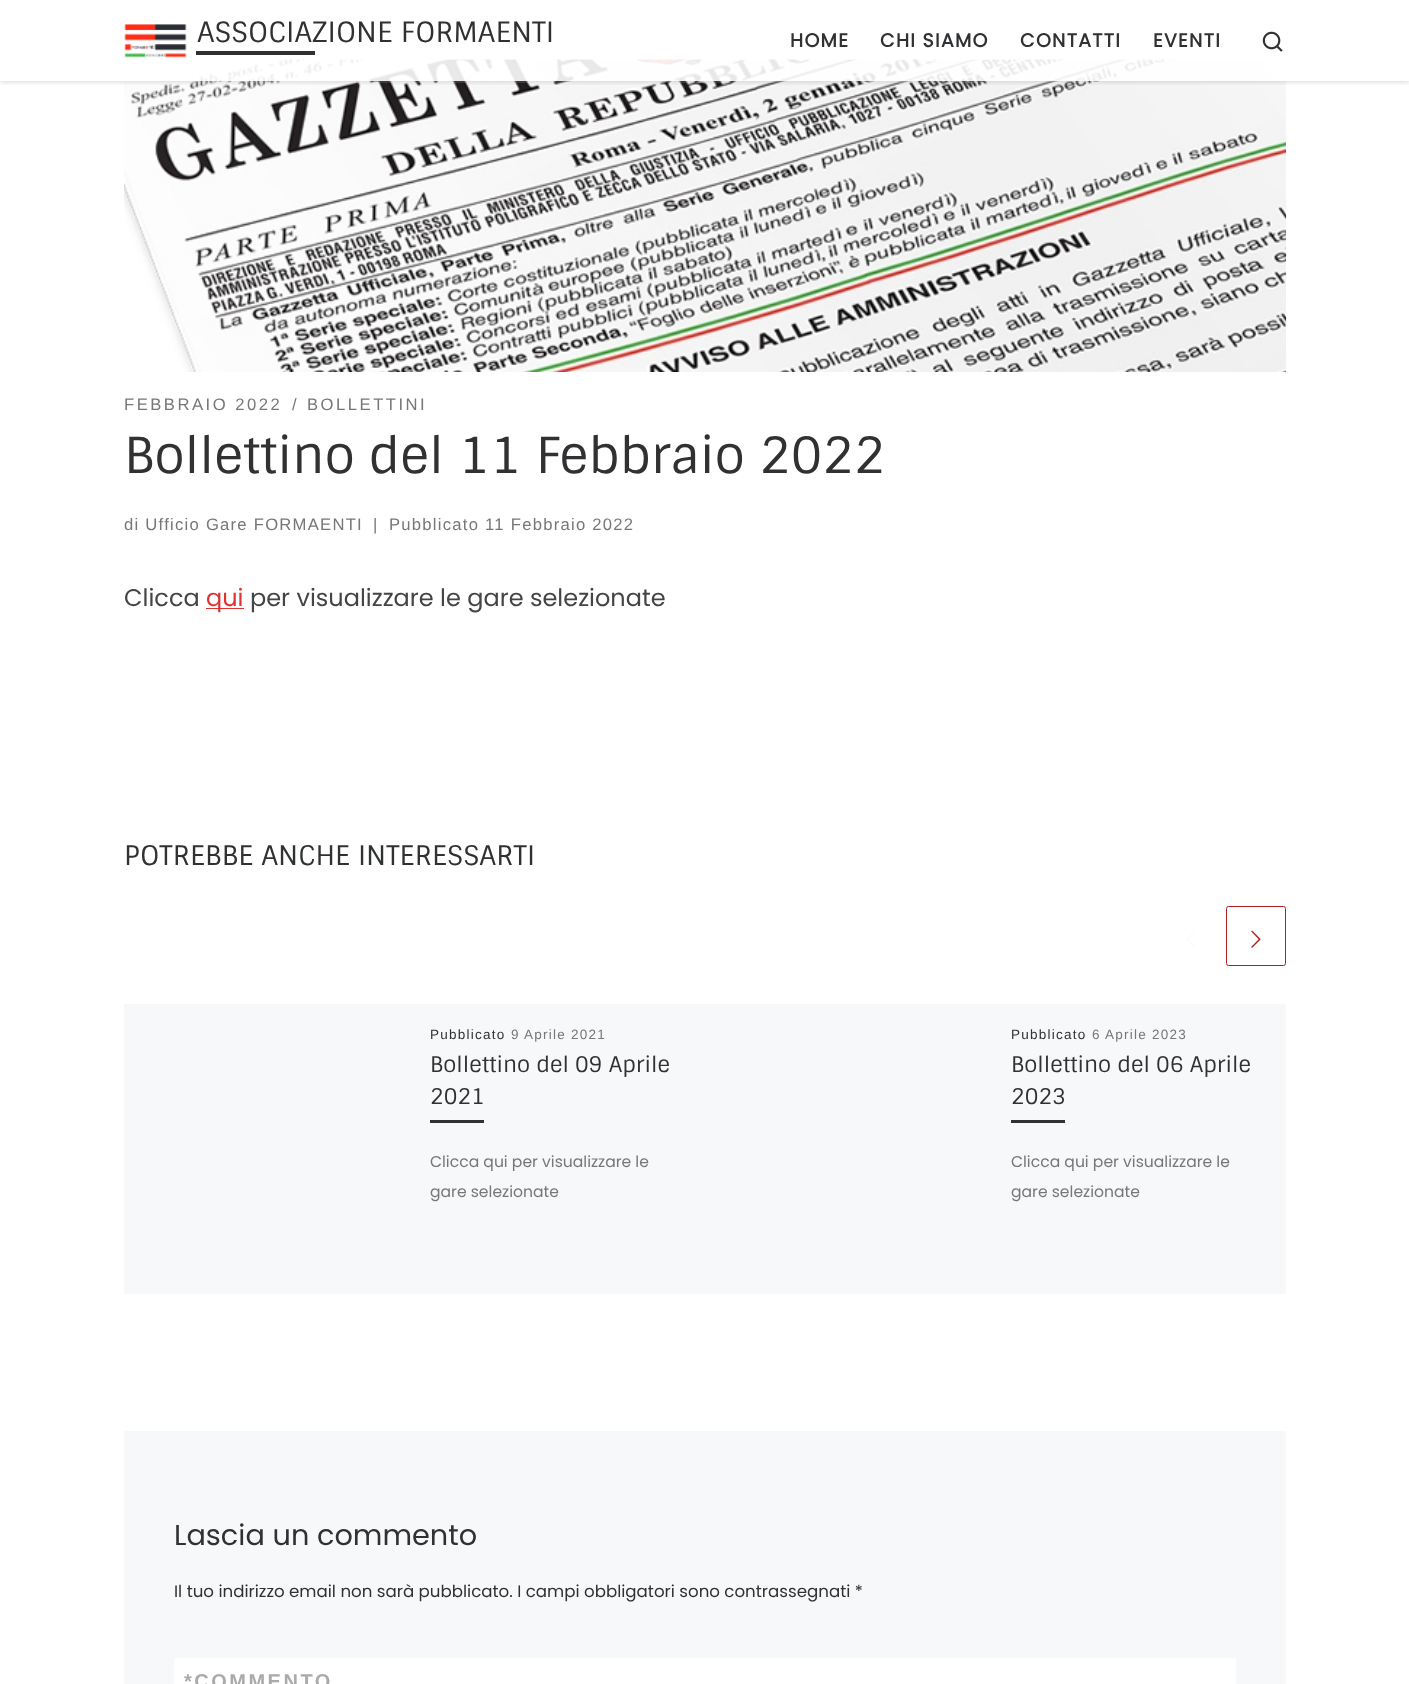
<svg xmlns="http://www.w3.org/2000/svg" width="1409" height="1684">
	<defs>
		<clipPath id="clip1"><rect x="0" y="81" width="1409" height="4" /></clipPath>
	</defs>
	<rect width="100%" height="100%" fill="#FFFFFF" />
	<image x="124" y="59" width="1163" height="313" href="assets/img3.png" />
	<rect x="191" y="81" width="908" height="2" fill="#FFFFFF" fill-opacity="0.15" />
	<g clip-path="url(#clip1)">
		<rect x="0" y="0" width="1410" height="81" fill="#000000" fill-opacity="0.2" filter="blur(3px)" />
	</g>
	<rect x="124" y="59" width="1162" height="22" fill="#FFFFFF" fill-opacity="0.9" />
	<image x="124" y="24" width="63" height="34" href="assets/img1.png" />
	<text x="197" y="42" font-family="Sintony" font-size="28" fill="#303133">ASSOCIAZIONE FORMAENTI</text>
	<rect x="196" y="51" width="119" height="4" fill="#313131" />
	<g font-family="Poppins" font-size="19" font-weight="700" letter-spacing="1.25" fill="#303133">
		<text x="790" y="47">HOME</text>
		<text x="880" y="47">CHI SIAMO</text>
		<text x="1020" y="47">CONTATTI</text>
		<text x="1153" y="47">EVENTI</text>
	</g>
	<image x="1262" y="31" width="21" height="21" href="assets/img2.png" />
	<g font-family="Liberation Sans" font-size="16.65" letter-spacing="2.5" fill="#777777">
		<text x="124" y="410">FEBBRAIO 2022</text>
		<text x="292" y="410">/</text>
		<text x="307" y="410">BOLLETTINI</text>
	</g>
	<text x="124" y="473" font-family="Sintony" font-size="49.75" fill="#303133">Bollettino del 11 Febbraio 2022</text>
	<g font-family="Liberation Sans" font-size="16.65" letter-spacing="1.25" fill="#777777">
		<text x="124" y="530">di Ufficio Gare FORMAENTI</text>
		<text x="373" y="530">|</text>
		<text x="389" y="530">Pubblicato 11 Febbraio 2022</text>
	</g>
	<text x="124" y="606" font-family="Poppins" font-size="24" fill="#444444">Clicca</text>
	<rect x="206" y="608" width="38" height="1" fill="#DD3333" />
	<text x="206" y="606" font-family="Poppins" font-size="24" fill="#DD3333">qui</text>
	<text x="250" y="606" font-family="Poppins" font-size="24" fill="#444444">per visualizzare le gare selezionate</text>
	<text x="124" y="865" font-family="Sintony" font-size="27" fill="#303133">POTREBBE ANCHE INTERESSARTI</text>
	<image x="1187" y="931" width="8" height="16" href="assets/img4.png" />
	<rect x="1226.5" y="906.5" width="59" height="59" rx="2" fill="none" stroke="#B51E1E" />
	<image x="1251" y="930" width="10" height="18" href="assets/img5.png" />
	<rect x="124" y="1004" width="1162" height="290" fill="#F7F8F9" />
	<text x="430" y="1039" font-family="Liberation Sans" font-size="13.5" letter-spacing="1.25" fill="#303133">Pubblicato</text>
	<text x="511" y="1039" font-family="Liberation Sans" font-size="13.5" letter-spacing="1.25" fill="#777777">9 Aprile 2021</text>
	<g font-family="Sintony" font-size="21.6" fill="#303133">
		<text x="430" y="1072">Bollettino del 09 Aprile</text>
		<text x="430" y="1104">2021</text>
	</g>
	<rect x="430" y="1120" width="54" height="3" fill="#313131" />
	<g font-family="Poppins" font-size="15.6" fill="#777777">
		<text x="430" y="1167">Clicca qui per visualizzare le</text>
		<text x="430" y="1197">gare selezionate</text>
	</g>
	<text x="1011" y="1039" font-family="Liberation Sans" font-size="13.5" letter-spacing="1.25" fill="#303133">Pubblicato</text>
	<text x="1092" y="1039" font-family="Liberation Sans" font-size="13.5" letter-spacing="1.25" fill="#777777">6 Aprile 2023</text>
	<g font-family="Sintony" font-size="21.6" fill="#303133">
		<text x="1011" y="1072">Bollettino del 06 Aprile</text>
		<text x="1011" y="1104">2023</text>
	</g>
	<rect x="1011" y="1120" width="54" height="3" fill="#313131" />
	<g font-family="Poppins" font-size="15.6" fill="#777777">
		<text x="1011" y="1167">Clicca qui per visualizzare le</text>
		<text x="1011" y="1197">gare selezionate</text>
	</g>
	<rect x="124" y="1431" width="1162" height="253" fill="#F7F8F9" />
	<text x="174" y="1545" font-family="Poppins" font-size="28.75" fill="#303133">Lascia un commento</text>
	<text x="174" y="1597" font-family="Poppins" font-size="16.65" fill="#303133">Il tuo indirizzo email non sarà pubblicato. I campi obbligatori sono contrassegnati *</text>
	<rect x="174" y="1658" width="1062" height="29" rx="2.5" fill="#FFFFFF" />
	<text x="184" y="1688" font-family="Liberation Sans" font-size="20" font-weight="700" letter-spacing="2.5" fill="#AAAAAA">*COMMENTO</text>
</svg>
